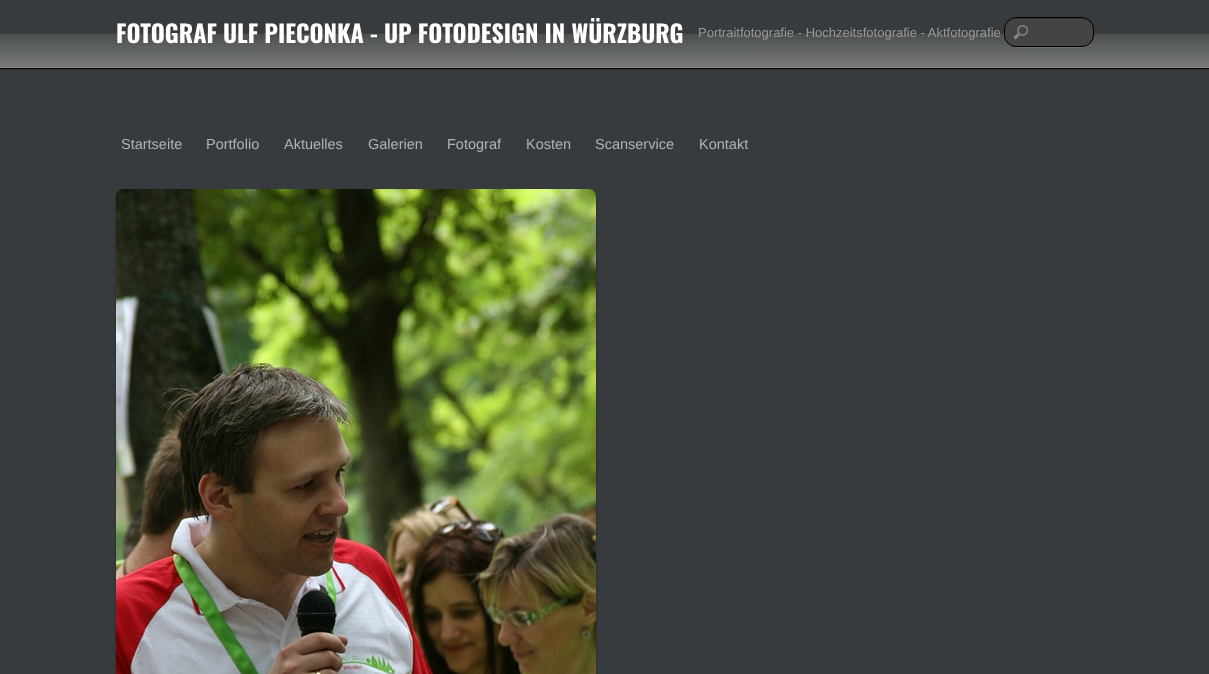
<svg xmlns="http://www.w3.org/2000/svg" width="1209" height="674">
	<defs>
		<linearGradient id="g1" gradientUnits="userSpaceOnUse" x1="605" y1="68" x2="605" y2="0"><stop offset="0" stop-color="#787A7B" /><stop offset="0.5" stop-color="#4C4F50" /><stop offset="0.51" stop-color="#383B3D" /></linearGradient>
	</defs>
	<rect width="100%" height="100%" fill="#383B3D" />
	<rect x="0" y="0" width="1209" height="69" fill="#000000" fill-opacity="0.3" filter="blur(1px)" />
	<rect x="0" y="0" width="1209" height="67" fill="url(#g1)" />
	<rect x="0" y="67" width="1209" height="1" fill="#8B8D8E" />
	<rect x="0" y="68" width="1209" height="1" fill="#000000" />
	<text x="116" y="43" font-family="Oswald" font-size="24" font-weight="700" fill="#FFFFFF">FOTOGRAF ULF PIECONKA - UP FOTODESIGN IN WÜRZBURG</text>
	<text x="698" y="37" font-family="Liberation Sans" font-size="13" fill="#999999">Portraitfotografie - Hochzeitsfotografie - Aktfotografie</text>
	<path d="M1004 35C1004 49 1016 48 1027 48H1071C1082 48 1094 49 1094 35C1094 42 1089 47 1082 47H1016C1009 47 1004 42 1004 35Z" fill="#FFFFFF" fill-opacity="0.1" />
	<rect x="1004" y="17" width="90" height="30" rx="12" fill="#444444" />
	<image x="1013" y="25" width="15" height="15" href="assets/img1.png" />
	<path d="M1016 19H1082C1088 19 1093 24 1093 30C1093 16 1081 18 1071 18H1027C1017 18 1005 16 1005 30C1005 24 1010 19 1016 19Z" fill="#363636" />
	<rect x="1004.5" y="17.5" width="89" height="29" rx="11.5" fill="none" stroke="#000000" />
	<g font-family="Liberation Sans" font-size="14.5" fill="#B1B2B3">
		<text x="121" y="149">Startseite</text>
		<text x="206" y="149">Portfolio</text>
		<text x="284" y="149">Aktuelles</text>
		<text x="368" y="149">Galerien</text>
		<text x="447" y="149">Fotograf</text>
		<text x="526" y="149">Kosten</text>
		<text x="595" y="149">Scanservice</text>
		<text x="699" y="149">Kontakt</text>
	</g>
	<rect x="116" y="190" width="480" height="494" rx="7" fill="#000000" fill-opacity="0.4" filter="blur(1px)" />
	<image x="116" y="189" width="480" height="485" href="assets/img2.png" />
</svg>
